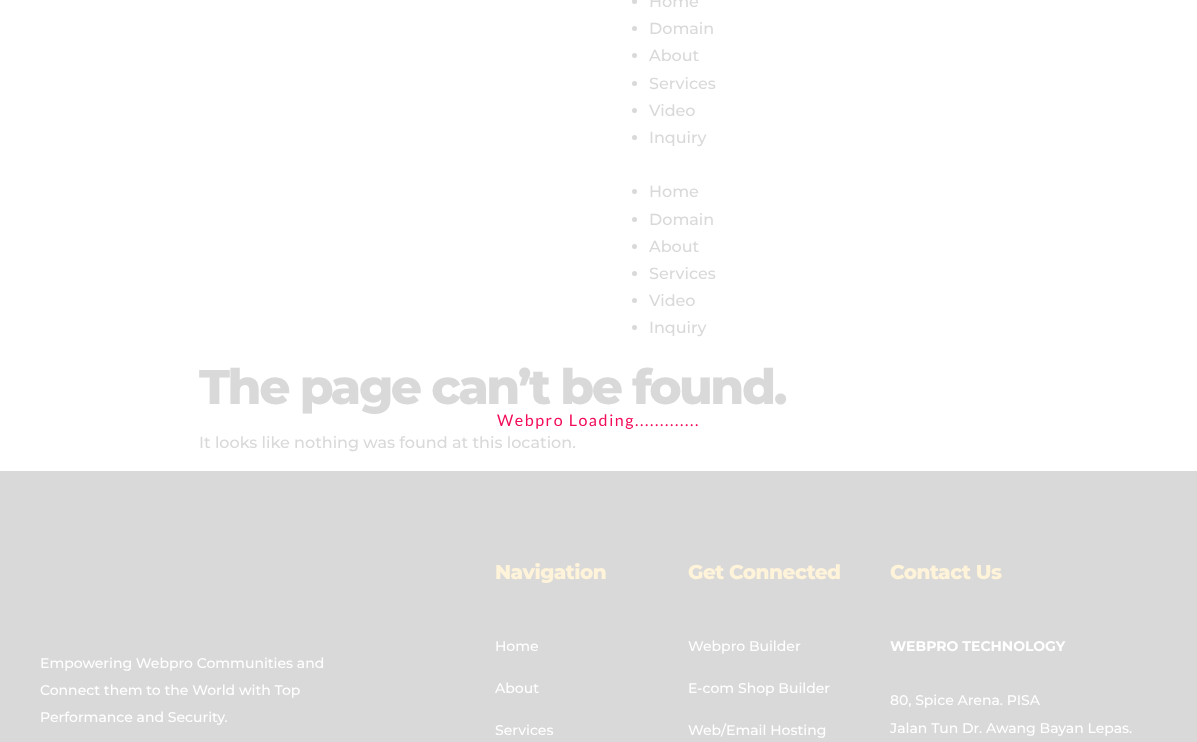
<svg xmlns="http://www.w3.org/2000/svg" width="1197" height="742">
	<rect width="100%" height="100%" fill="#FFFFFF" />
	<circle cx="634.5" cy="1.5" r="2.5" fill="#D9D9D9" />
	<text x="649" y="7" font-family="Montserrat" font-size="16" font-weight="500" fill="#D9D9D9">Home</text>
	<circle cx="634.5" cy="28.5" r="2.5" fill="#D9D9D9" />
	<text x="649" y="34" font-family="Montserrat" font-size="16" font-weight="500" fill="#D9D9D9">Domain</text>
	<circle cx="634.5" cy="55.5" r="2.5" fill="#D9D9D9" />
	<text x="649" y="61" font-family="Montserrat" font-size="16" font-weight="500" fill="#D9D9D9">About</text>
	<circle cx="634.5" cy="83.5" r="2.5" fill="#D9D9D9" />
	<text x="649" y="89" font-family="Montserrat" font-size="16" font-weight="500" fill="#D9D9D9">Services</text>
	<circle cx="634.5" cy="110.5" r="2.5" fill="#D9D9D9" />
	<text x="649" y="116" font-family="Montserrat" font-size="16" font-weight="500" fill="#D9D9D9">Video</text>
	<circle cx="634.5" cy="137.5" r="2.5" fill="#D9D9D9" />
	<text x="649" y="143" font-family="Montserrat" font-size="16" font-weight="500" fill="#D9D9D9">Inquiry</text>
	<circle cx="634.5" cy="191.5" r="2.5" fill="#D9D9D9" />
	<text x="649" y="197" font-family="Montserrat" font-size="16" font-weight="500" fill="#D9D9D9">Home</text>
	<circle cx="634.5" cy="219.5" r="2.5" fill="#D9D9D9" />
	<text x="649" y="225" font-family="Montserrat" font-size="16" font-weight="500" fill="#D9D9D9">Domain</text>
	<circle cx="634.5" cy="246.5" r="2.5" fill="#D9D9D9" />
	<text x="649" y="252" font-family="Montserrat" font-size="16" font-weight="500" fill="#D9D9D9">About</text>
	<circle cx="634.5" cy="273.5" r="2.5" fill="#D9D9D9" />
	<text x="649" y="279" font-family="Montserrat" font-size="16" font-weight="500" fill="#D9D9D9">Services</text>
	<circle cx="634.5" cy="300.5" r="2.5" fill="#D9D9D9" />
	<text x="649" y="306" font-family="Montserrat" font-size="16" font-weight="500" fill="#D9D9D9">Video</text>
	<circle cx="634.5" cy="327.5" r="2.5" fill="#D9D9D9" />
	<text x="649" y="333" font-family="Montserrat" font-size="16" font-weight="500" fill="#D9D9D9">Inquiry</text>
	<text x="199" y="404" font-family="Montserrat" font-size="48.75" font-weight="800" letter-spacing="-2.5" fill="#D9D9D9">The page can’t be found.</text>
	<text x="199" y="448" font-family="Montserrat" font-size="16" font-weight="500" fill="#D9D9D9">It looks like nothing was found at this location.</text>
	<text x="497" y="426" font-family="Lato" font-size="16" letter-spacing="1.6" fill="#F20C58">Webpro Loading.............</text>
	<rect x="0" y="471" width="1197" height="271" fill="#D9D9D9" />
	<g font-family="Montserrat" font-size="14" font-weight="500" fill="#FFFFFF">
		<text x="40" y="668">Empowering Webpro Communities and</text>
		<text x="40" y="695">Connect them to the World with Top</text>
		<text x="40" y="722">Performance and Security.</text>
	</g>
	<text x="495" y="579" font-family="Montserrat" font-size="20" font-weight="800" letter-spacing="-0.5" fill="#FFF4D9">Navigation</text>
	<g font-family="Montserrat" font-size="14" font-weight="500" fill="#FFFFFF">
		<text x="495" y="651">Home</text>
		<text x="495" y="693">About</text>
		<text x="495" y="735">Services</text>
	</g>
	<text x="688" y="579" font-family="Montserrat" font-size="20" font-weight="800" letter-spacing="-0.5" fill="#FFF4D9">Get Connected</text>
	<g font-family="Montserrat" font-size="14" font-weight="500" fill="#FFFFFF">
		<text x="688" y="651">Webpro Builder</text>
		<text x="688" y="693">E-com Shop Builder</text>
		<text x="688" y="735">Web/Email Hosting</text>
	</g>
	<text x="890" y="579" font-family="Montserrat" font-size="20" font-weight="800" letter-spacing="-0.5" fill="#FFF4D9">Contact Us</text>
	<text x="890" y="651" font-family="Montserrat" font-size="14" font-weight="700" fill="#FFFFFF">WEBPRO TECHNOLOGY</text>
	<g font-family="Montserrat" font-size="14" font-weight="500" fill="#FFFFFF">
		<text x="890" y="705">80, Spice Arena. PISA</text>
		<text x="890" y="733">Jalan Tun Dr. Awang Bayan Lepas.</text>
	</g>
</svg>
